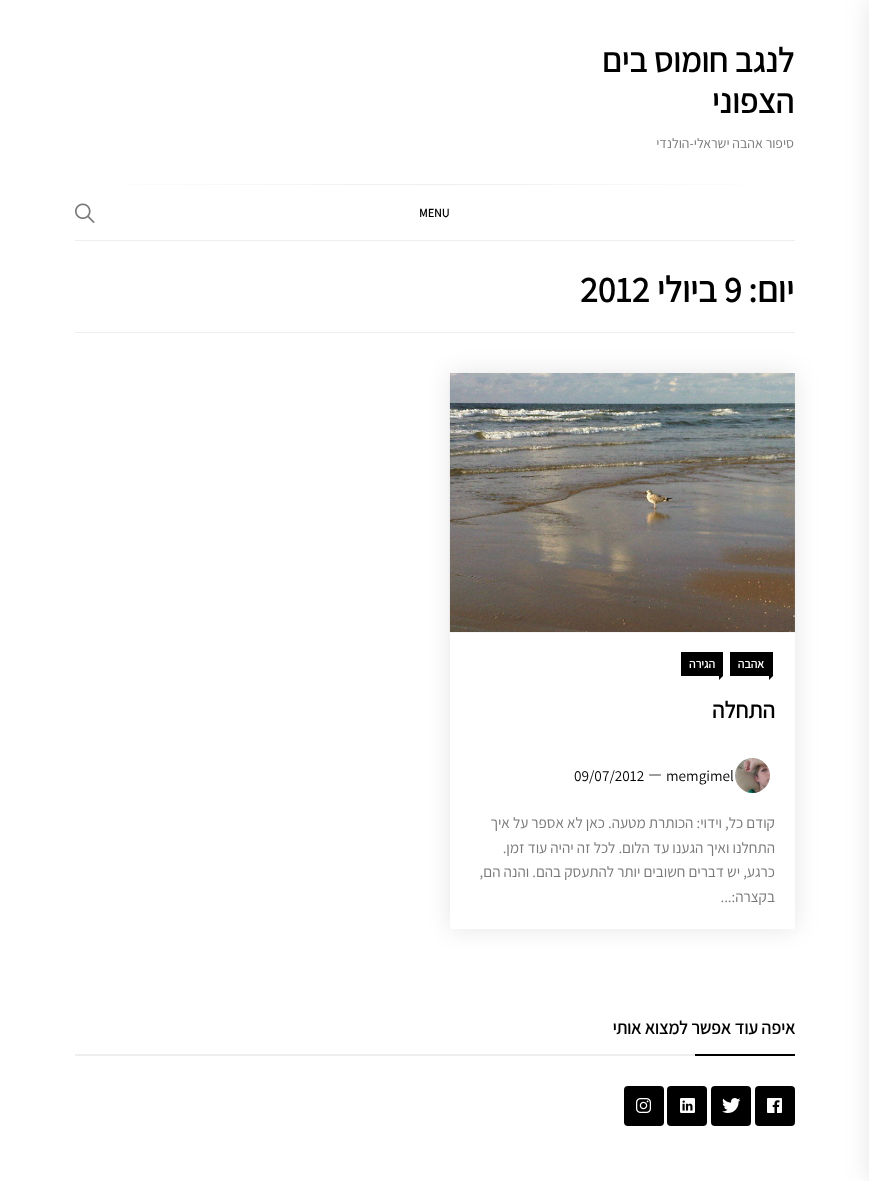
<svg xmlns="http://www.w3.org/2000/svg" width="869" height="1181">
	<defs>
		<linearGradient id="g1" gradientUnits="userSpaceOnUse" x1="795" y1="185" x2="75" y2="184"><stop offset="0" stop-color="#FFFFFF" /><stop offset="0.5" stop-color="#EEEEEE" /><stop offset="1" stop-color="#FFFFFF" /></linearGradient>
		<clipPath id="clip1"><path d="M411 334H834V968H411ZM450 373H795V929H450Z" clip-rule="evenodd" /></clipPath>
	</defs>
	<rect width="100%" height="100%" fill="#FFFFFF" />
	<rect x="869" y="0" width="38" height="1181" fill="#000000" fill-opacity="0.1" filter="blur(12.5px)" />
	<g font-family="Assistant" font-size="34" font-weight="700" direction="rtl" fill="#000000">
		<text x="794" y="72">לנגב חומוס בים</text>
		<text x="794" y="113">הצפוני</text>
	</g>
	<text x="794" y="148" font-family="Assistant" font-size="14" font-weight="200" direction="rtl" fill="#787878">סיפור אהבה ישראלי-הולנדי</text>
	<rect x="75" y="240" width="720" height="1" fill="#EEEEEE" />
	<rect x="128" y="184" width="614" height="1" fill="url(#g1)" />
	<text x="419" y="217" font-family="Assistant" font-size="12" font-weight="700" fill="#000000">MENU</text>
	<image x="75" y="203" width="20" height="20" href="assets/img1.png" />
	<rect x="75" y="332" width="720" height="1" fill="#EEEEEE" />
	<text x="794" y="302" font-family="Assistant" font-size="36" font-weight="700" direction="rtl" fill="#000000">יום:</text>
	<text x="724" y="302" font-family="Assistant" font-size="36" font-weight="700" fill="#000000">9</text>
	<text x="717" y="302" font-family="Assistant" font-size="36" font-weight="700" direction="rtl" fill="#000000">ביולי</text>
	<text x="580" y="302" font-family="Assistant" font-size="36" font-weight="700" fill="#000000">2012</text>
	<g clip-path="url(#clip1)">
		<rect x="450" y="373" width="345" height="556" fill="#000000" fill-opacity="0.1" filter="blur(12.5px)" />
	</g>
	<image x="449" y="373" width="346" height="260" href="assets/img2.png" />
	<rect x="730" y="652" width="43" height="24" fill="#000000" />
	<text x="764" y="668" font-family="Assistant" font-size="12" font-weight="700" direction="rtl" fill="#FFFFFF">אהבה</text>
	<path d="M769 680V676H773ZM719 680V676H723Z" fill="#000000" />
	<rect x="681" y="652" width="42" height="24" fill="#000000" />
	<text x="715" y="668" font-family="Assistant" font-size="12" font-weight="700" direction="rtl" fill="#FFFFFF">הגירה</text>
	<text x="775" y="718" font-family="Assistant" font-size="23" font-weight="700" direction="rtl" fill="#000000">התחלה</text>
	<image x="735" y="758" width="35" height="35" href="assets/img3.png" />
	<text x="666" y="781" font-family="Assistant" font-size="15.25" font-weight="200" fill="#000000">memgimel</text>
	<image x="649" y="774" width="12" height="2" href="assets/img4.png" />
	<text x="574" y="781" font-family="Assistant" font-size="15.25" font-weight="200" fill="#000000">09/07/2012</text>
	<g font-family="Assistant" font-size="15.25" font-weight="200" direction="rtl" fill="#787878">
		<text x="775" y="828">קודם כל, וידוי: הכותרת מטעה. כאן לא אספר על איך</text>
		<text x="775" y="853">התחלנו ואיך הגענו עד הלום. לכל זה יהיה עוד זמן.</text>
		<text x="775" y="877">כרגע, יש דברים חשובים יותר להתעסק בהם. והנה הם,</text>
		<text x="775" y="902">בקצרה:...</text>
	</g>
	<rect x="75" y="1054" width="620" height="2" fill="#EEEEEE" />
	<text x="795" y="1034" font-family="Assistant" font-size="18" font-weight="700" direction="rtl" fill="#000000">איפה עוד אפשר למצוא אותי</text>
	<rect x="695" y="1054" width="100" height="2" fill="#000000" />
	<rect x="755" y="1086" width="40" height="40" rx="4" fill="#000000" />
	<image x="767" y="1098" width="15" height="15" href="assets/img5.png" />
	<rect x="711" y="1086" width="40" height="40" rx="4" fill="#000000" />
	<image x="722" y="1098" width="19" height="15" href="assets/img6.png" />
	<rect x="667" y="1086" width="40" height="40" rx="4" fill="#000000" />
	<image x="680" y="1098" width="15" height="15" href="assets/img7.png" />
	<rect x="624" y="1086" width="40" height="40" rx="4" fill="#000000" />
	<image x="636" y="1098" width="15" height="15" href="assets/img8.png" />
</svg>
